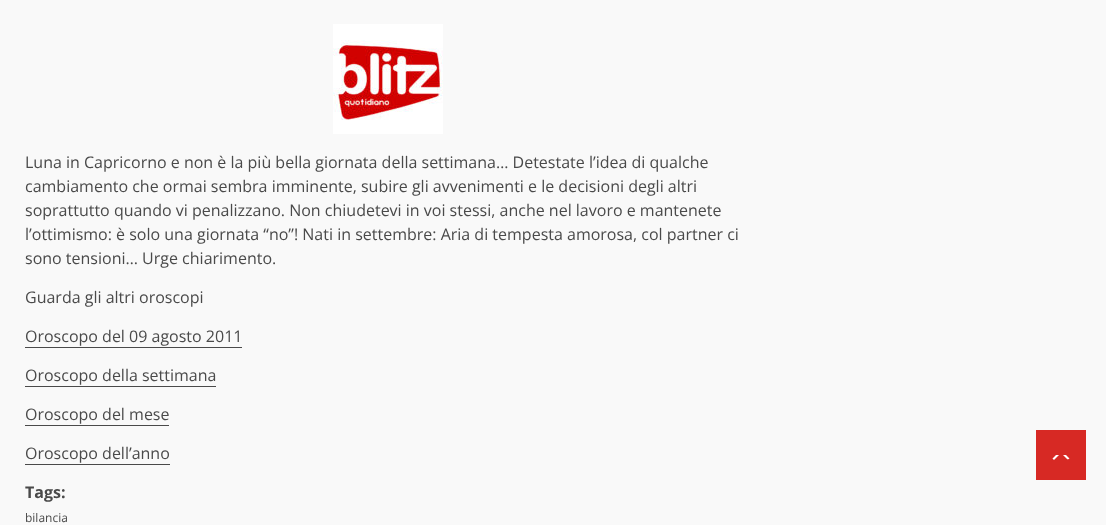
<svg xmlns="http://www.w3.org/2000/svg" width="1106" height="525">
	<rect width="100%" height="100%" fill="#F9F9F9" />
	<image x="333" y="24" width="110" height="110" href="assets/img1.png" />
	<g font-family="Open Sans" font-size="16" fill="#4A4A4A">
		<text x="25" y="168">Luna in Capricorno e non è la più bella giornata della settimana… Detestate l’idea di qualche</text>
		<text x="25" y="192">cambiamento che ormai sembra imminente, subire gli avvenimenti e le decisioni degli altri</text>
		<text x="25" y="216">soprattutto quando vi penalizzano. Non chiudetevi in voi stessi, anche nel lavoro e mantenete</text>
		<text x="25" y="240">l’ottimismo: è solo una giornata “no”! Nati in settembre: Aria di tempesta amorosa, col partner ci</text>
		<text x="25" y="264">sono tensioni… Urge chiarimento.</text>
		<text x="25" y="303">Guarda gli altri oroscopi</text>
		<text x="25" y="342">Oroscopo del 09 agosto 2011</text>
	</g>
	<rect x="25" y="347" width="217" height="1" fill="#4A4A4A" />
	<text x="25" y="381" font-family="Open Sans" font-size="16" fill="#4A4A4A">Oroscopo della settimana</text>
	<rect x="25" y="386" width="191" height="1" fill="#4A4A4A" />
	<text x="25" y="420" font-family="Open Sans" font-size="16" fill="#4A4A4A">Oroscopo del mese</text>
	<rect x="25" y="425" width="144" height="1" fill="#4A4A4A" />
	<text x="25" y="459" font-family="Open Sans" font-size="16" fill="#4A4A4A">Oroscopo dell’anno</text>
	<rect x="25" y="464" width="145" height="1" fill="#4A4A4A" />
	<text x="25" y="498" font-family="Open Sans" font-size="16" font-weight="700" fill="#4A4A4A">Tags:</text>
	<text x="25" y="522" font-family="Open Sans" font-size="12" fill="#4A4A4A">bilancia</text>
	<rect x="1036" y="430" width="50" height="50" fill="#D72924" />
	<path d="M1056 460C1059 460 1067.5 461 1069.5 458.5L1066 455H1056L1052.5 458.5C1053 459.5 1054.5 460 1056 460Z" fill="#FFFFFF" />
	<path d="M1071 463H1051L1061 453Z" fill="#D72924" />
</svg>
